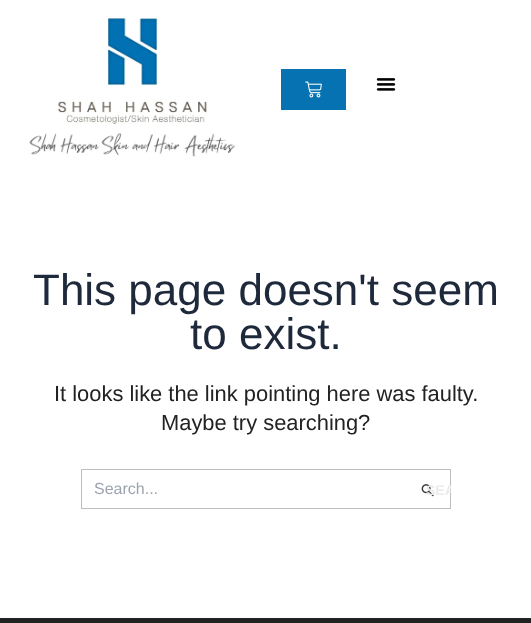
<svg xmlns="http://www.w3.org/2000/svg" width="531" height="623">
	<defs>
		<clipPath id="clip1"><rect x="406" y="469" width="45" height="42" rx="2" /></clipPath>
	</defs>
	<rect width="100%" height="100%" fill="#FFFFFF" />
	<image x="29" y="18" width="207" height="139" href="assets/img1.png" />
	<rect x="281" y="69" width="65" height="41" fill="#0672B2" />
	<image x="305" y="81" width="17" height="17" href="assets/img2.png" />
	<image x="376" y="78" width="20" height="13" href="assets/img3.png" />
	<g font-family="Liberation Sans" font-size="44" fill="#1E293B">
		<text x="33" y="305">This page doesn't seem</text>
		<text x="190" y="349">to exist.</text>
	</g>
	<g font-family="Liberation Sans" font-size="21.9" fill="#222222">
		<text x="54" y="401">It looks like the link pointing here was faulty.</text>
		<text x="161" y="430">Maybe try searching?</text>
	</g>
	<rect x="81.5" y="469.5" width="369" height="39" fill="none" stroke="#BDBDBD" />
	<text x="94" y="494" font-family="Liberation Sans" font-size="16" fill="#9CA3AF">Search...</text>
	<image x="421" y="484" width="13" height="13" href="assets/img4.png" />
	<g clip-path="url(#clip1)">
		<text x="426" y="495" font-family="Liberation Sans" font-size="14" font-weight="700" fill="#EBEBEB">SEA</text>
	</g>
	<rect x="0" y="618" width="531" height="5" fill="#222222" />
</svg>
